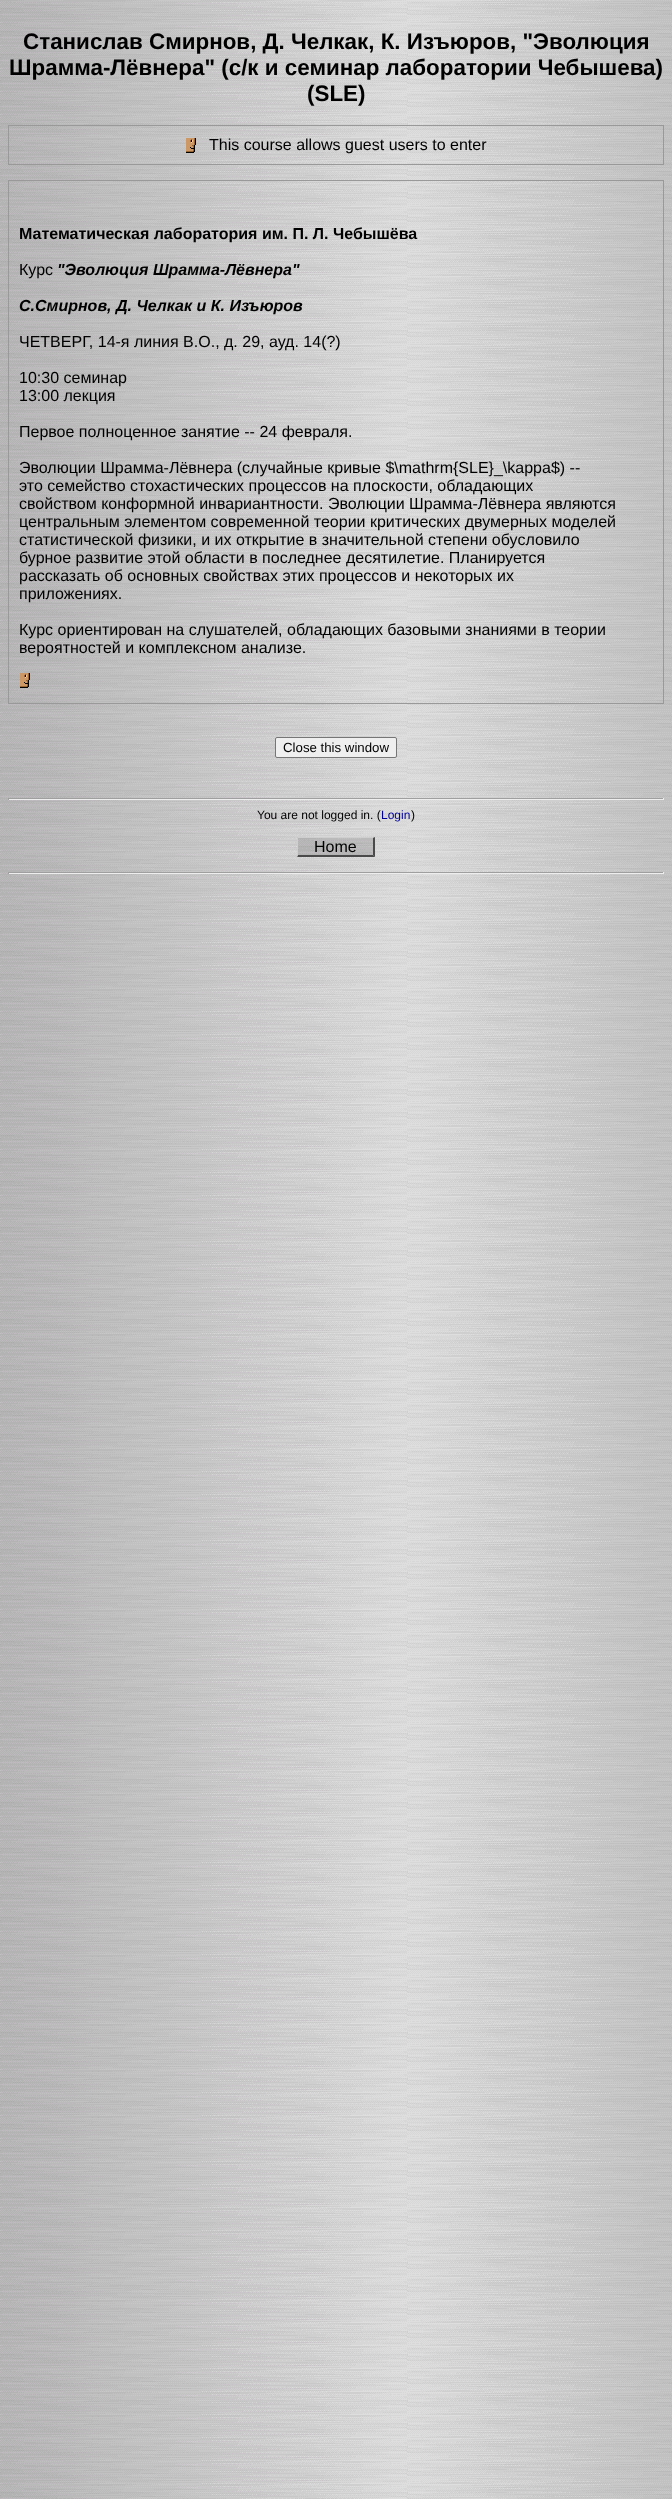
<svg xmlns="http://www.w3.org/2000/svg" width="672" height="2499">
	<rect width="100%" height="100%" fill="#FFFFFF" />
	<image x="0" y="0" width="672" height="2499" href="assets/img1.png" />
	<g font-family="Liberation Sans" font-size="22.4" font-weight="700" fill="#000000">
		<text x="23" y="49">Станислав Смирнов, Д. Челкак, К. Изъюров, "Эволюция</text>
		<text x="9" y="75">Шрамма-Лёвнера" (c/к и семинар лаборатории Чебышева)</text>
		<text x="307" y="101">(SLE)</text>
	</g>
	<rect x="8.5" y="125.5" width="655" height="39" fill="none" stroke="#999999" />
	<image x="186" y="138" width="10" height="15" href="assets/img2.png" />
	<text x="209" y="150" font-family="Liberation Sans" font-size="16" fill="#000000">This course allows guest users to enter</text>
	<rect x="8.5" y="180.5" width="655" height="523" fill="none" stroke="#999999" />
	<text x="19" y="239" font-family="Liberation Sans" font-size="16" font-weight="700" fill="#000000">Математическая лаборатория им. П. Л. Чебышёва</text>
	<text x="19" y="275" font-family="Liberation Sans" font-size="16" fill="#000000">Курс</text>
	<g font-family="Liberation Sans" font-size="16" font-weight="700" font-style="italic" fill="#000000">
		<text x="57" y="275">"Эволюция Шрамма-Лёвнера"</text>
		<text x="19" y="311">C.Смирнов, Д. Челкак и К. Изъюров</text>
	</g>
	<g font-family="Liberation Sans" font-size="16" fill="#000000">
		<text x="19" y="347">ЧЕТВЕРГ, 14-я линия В.О., д. 29, ауд. 14(?)</text>
		<text x="19" y="383">10:30 семинар</text>
		<text x="19" y="401">13:00 лекция</text>
		<text x="19" y="437">Первое полноценное занятие -- 24 февраля.</text>
		<text x="19" y="473">Эволюции Шрамма-Лёвнера (случайные кривые $\mathrm{SLE}_\kappa$) --</text>
		<text x="19" y="491">это семейство стохастических процессов на плоскости, обладающих</text>
		<text x="19" y="509">свойством конформной инвариантности. Эволюции Шрамма-Лёвнера являются</text>
		<text x="19" y="527">центральным элементом современной теории критических двумерных моделей</text>
		<text x="19" y="545">статистической физики, и их открытие в значительной степени обусловило</text>
		<text x="19" y="563">бурное развитие этой области в последнее десятилетие. Планируется</text>
		<text x="19" y="581">рассказать об основных свойствах этих процессов и некоторых их</text>
		<text x="19" y="599">приложениях.</text>
		<text x="19" y="635">Курс ориентирован на слушателей, обладающих базовыми знаниями в теории</text>
		<text x="19" y="653">вероятностей и комплексном анализе.</text>
	</g>
	<image x="20" y="673" width="10" height="15" href="assets/img3.png" />
	<rect x="275.5" y="737.5" width="121" height="20" rx="1.5" fill="#EFEFEF" stroke="#767676" />
	<text x="283" y="752" font-family="Liberation Sans" font-size="13.25" fill="#000000">Close this window</text>
	<rect x="8" y="798" width="656" height="1" fill="#9F9F9F" />
	<rect x="663" y="798" width="1" height="2" fill="#EEEEEE" />
	<rect x="8" y="799" width="656" height="1" fill="#EEEEEE" />
	<rect x="8" y="798" width="1" height="2" fill="#9F9F9F" />
	<text x="257" y="819" font-family="Liberation Sans" font-size="12" fill="#000000">You are not logged in. (</text>
	<text x="381" y="819" font-family="Liberation Sans" font-size="12" fill="#000099">Login</text>
	<text x="411" y="819" font-family="Liberation Sans" font-size="12" fill="#000000">)</text>
	<image x="297" y="837" width="78" height="20" href="assets/img4.png" />
	<text x="314" y="852" font-family="Liberation Sans" font-size="16" fill="#000000">Home</text>
	<path d="M297 837H375L373 838H298Z" fill="#CECECE" />
	<path d="M375 837V857L373 855V838Z" fill="#4A4A4A" />
	<path d="M375 857H297L298 855H373Z" fill="#4A4A4A" />
	<path d="M297 857V837L298 838V855Z" fill="#CECECE" />
	<rect x="8" y="872" width="656" height="1" fill="#9F9F9F" />
	<rect x="663" y="872" width="1" height="2" fill="#EEEEEE" />
	<rect x="8" y="873" width="656" height="1" fill="#EEEEEE" />
	<rect x="8" y="872" width="1" height="2" fill="#9F9F9F" />
</svg>
